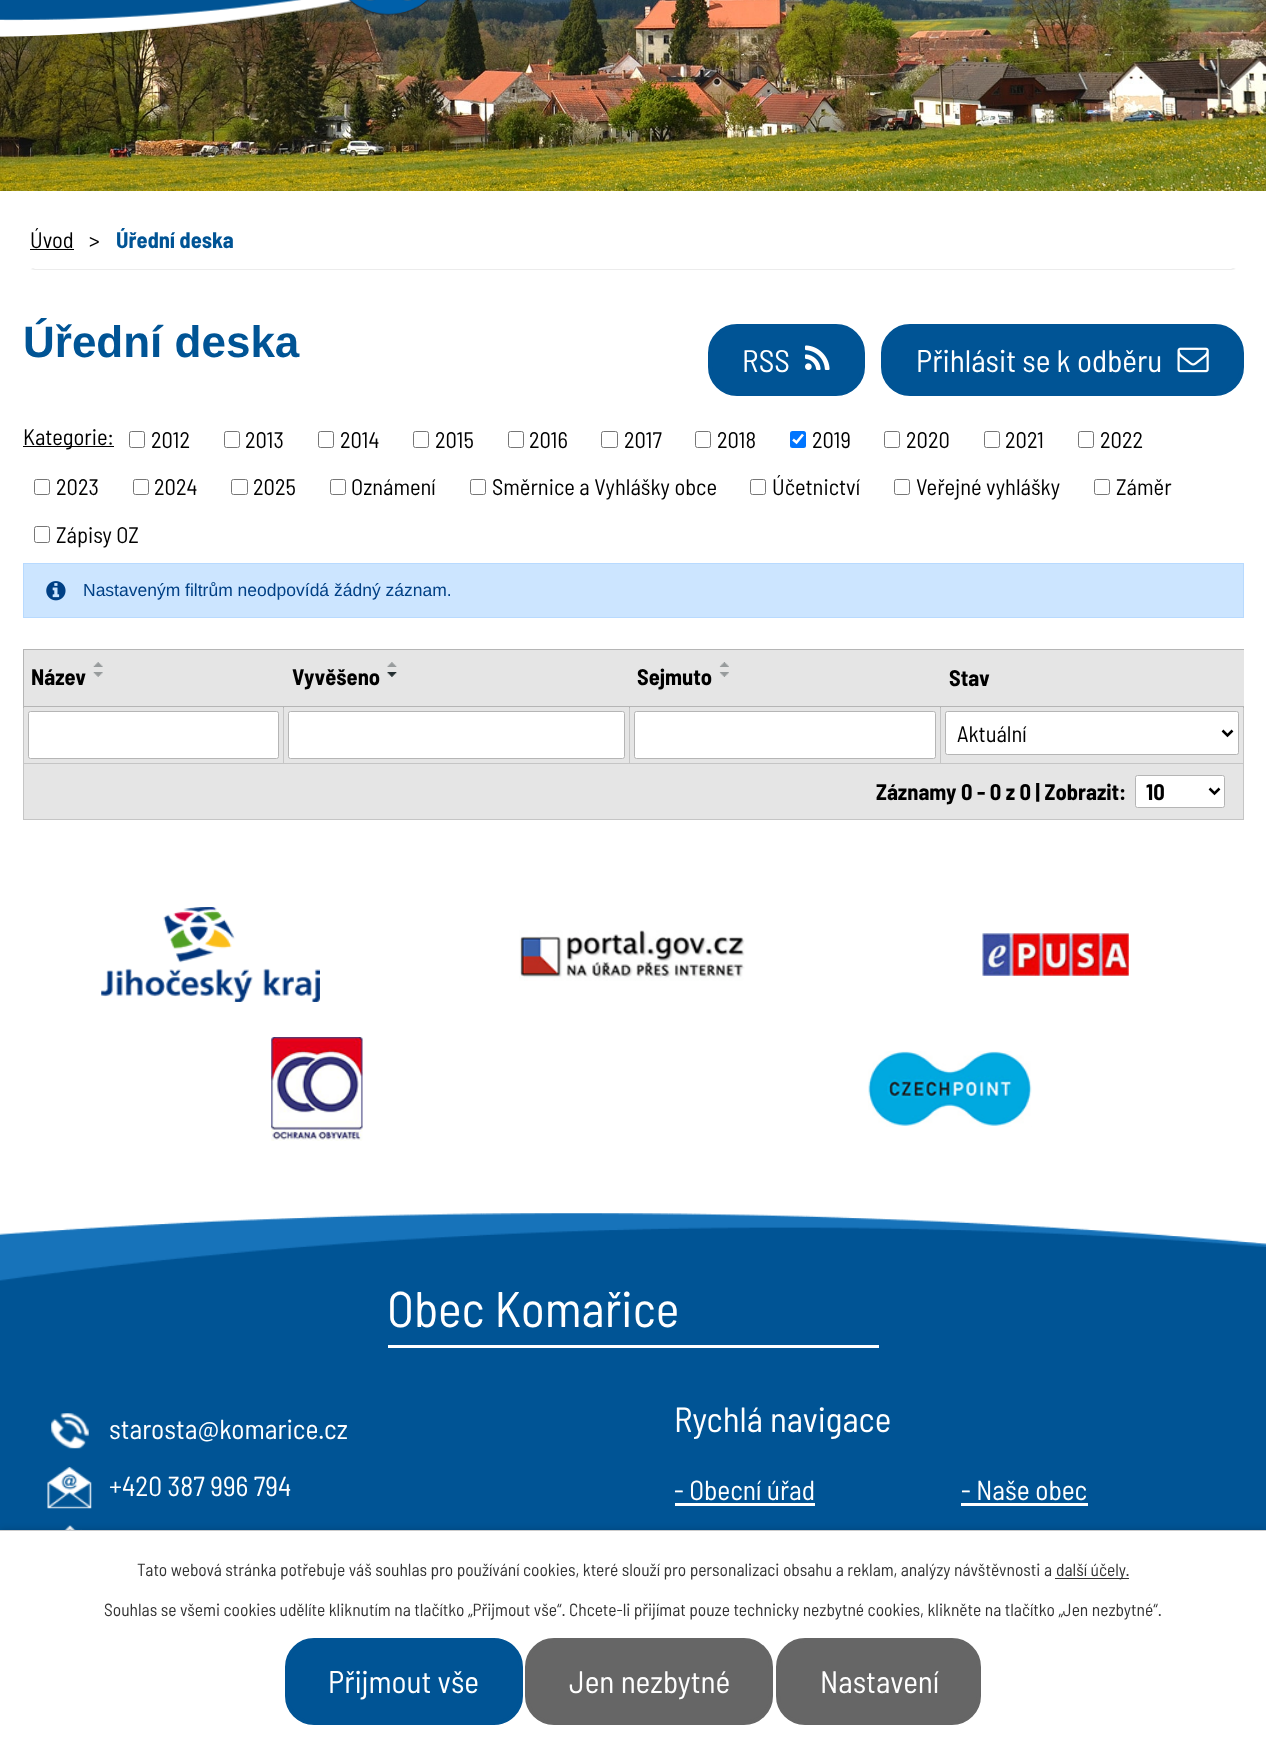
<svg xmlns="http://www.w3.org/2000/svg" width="1266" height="1737">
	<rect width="100%" height="100%" fill="#FFFFFF" />
	<image x="0" y="0" width="1266" height="191" href="assets/img1.png" />
	<image x="0" y="0" width="353" height="37" href="assets/img2.png" />
	<image x="348" y="0" width="81" height="15" href="assets/img3.png" />
	<path d="M35 270H1231L1236 269L1233 268L1231 269H35L33 268L30 269Z" fill="#ECECEC" />
	<path d="M22 223C23 220 24 219 26 217L31 223C30 223 30 225 30 226V258C30 263 31 267 33 268L30 269C26 267 24 264 22 261Z" fill="#FFFFFF" />
	<text x="30" y="248" font-family="Barlow Semi Condensed" font-size="22.5" fill="#000000">Úvod</text>
	<rect x="30" y="249" width="44" height="1" fill="#000000" />
	<text x="89" y="248" font-family="Barlow Semi Condensed" font-size="22.5" fill="#000000">&gt;</text>
	<text x="116" y="248" font-family="Barlow Semi Condensed" font-size="22.5" font-weight="700" fill="#005495">Úřední deska</text>
	<text x="23" y="357" font-family="Liberation Sans" font-size="44" font-weight="700" fill="#005495">Úřední deska</text>
	<rect x="710" y="326" width="153" height="68" rx="27" fill="#005495" stroke="#005495" stroke-width="4" />
	<text x="742" y="372" font-family="Barlow Semi Condensed" font-size="31.25" fill="#FFFFFF">RSS</text>
	<image x="805" y="345" width="25" height="25" href="assets/img4.png" />
	<rect x="883" y="326" width="359" height="68" rx="27" fill="#005495" stroke="#005495" stroke-width="4" />
	<text x="916" y="372" font-family="Barlow Semi Condensed" font-size="31.25" fill="#FFFFFF">Přihlásit se k odběru</text>
	<image x="1177" y="347" width="32" height="26" href="assets/img5.png" />
	<rect x="23" y="446" width="91" height="1" fill="#000000" />
	<text x="23" y="445" font-family="Barlow Semi Condensed" font-size="22.5" fill="#000000">Kategorie:</text>
	<rect x="129.5" y="431.5" width="15" height="16" rx="2" fill="none" stroke="#767676" />
	<text x="151" y="448" font-family="Barlow Semi Condensed" font-size="22.5" fill="#000000">2012</text>
	<rect x="224.5" y="431.5" width="15" height="16" rx="2" fill="none" stroke="#767676" />
	<text x="245" y="448" font-family="Barlow Semi Condensed" font-size="22.5" fill="#000000">2013</text>
	<rect x="318.5" y="431.5" width="15" height="16" rx="2" fill="none" stroke="#767676" />
	<text x="340" y="448" font-family="Barlow Semi Condensed" font-size="22.5" fill="#000000">2014</text>
	<rect x="413.5" y="431.5" width="15" height="16" rx="2" fill="none" stroke="#767676" />
	<text x="435" y="448" font-family="Barlow Semi Condensed" font-size="22.5" fill="#000000">2015</text>
	<rect x="508.5" y="431.5" width="15" height="16" rx="2" fill="none" stroke="#767676" />
	<text x="529" y="448" font-family="Barlow Semi Condensed" font-size="22.5" fill="#000000">2016</text>
	<rect x="601.5" y="431.5" width="16" height="16" rx="2" fill="none" stroke="#767676" />
	<text x="624" y="448" font-family="Barlow Semi Condensed" font-size="22.5" fill="#000000">2017</text>
	<rect x="695.5" y="431.5" width="15" height="16" rx="2" fill="none" stroke="#767676" />
	<text x="717" y="448" font-family="Barlow Semi Condensed" font-size="22.5" fill="#000000">2018</text>
	<rect x="790" y="431" width="16" height="17" rx="2.5" fill="#0075FF" />
	<path d="M793 439.5L796.5 442.5L803 434.5" fill="none" stroke="#FFFFFF" stroke-width="2.6" />
	<text x="812" y="448" font-family="Barlow Semi Condensed" font-size="22.5" fill="#000000">2019</text>
	<rect x="884.5" y="431.5" width="15" height="16" rx="2" fill="none" stroke="#767676" />
	<text x="906" y="448" font-family="Barlow Semi Condensed" font-size="22.5" fill="#000000">2020</text>
	<rect x="984.5" y="431.5" width="15" height="16" rx="2" fill="none" stroke="#767676" />
	<text x="1005" y="448" font-family="Barlow Semi Condensed" font-size="22.5" fill="#000000">2021</text>
	<rect x="1078.5" y="431.5" width="15" height="16" rx="2" fill="none" stroke="#767676" />
	<text x="1100" y="448" font-family="Barlow Semi Condensed" font-size="22.5" fill="#000000">2022</text>
	<rect x="34.5" y="479.5" width="15" height="15" rx="2" fill="none" stroke="#767676" />
	<text x="56" y="495" font-family="Barlow Semi Condensed" font-size="22.5" fill="#000000">2023</text>
	<rect x="133.5" y="479.5" width="15" height="15" rx="2" fill="none" stroke="#767676" />
	<text x="154" y="495" font-family="Barlow Semi Condensed" font-size="22.5" fill="#000000">2024</text>
	<rect x="231.5" y="479.5" width="16" height="15" rx="2" fill="none" stroke="#767676" />
	<text x="253" y="495" font-family="Barlow Semi Condensed" font-size="22.5" fill="#000000">2025</text>
	<rect x="330.5" y="479.5" width="15" height="15" rx="2" fill="none" stroke="#767676" />
	<text x="351" y="495" font-family="Barlow Semi Condensed" font-size="22.5" fill="#000000">Oznámení</text>
	<rect x="470.5" y="479.5" width="15" height="15" rx="2" fill="none" stroke="#767676" />
	<text x="492" y="495" font-family="Barlow Semi Condensed" font-size="22.5" fill="#000000">Směrnice a Vyhlášky obce</text>
	<rect x="750.5" y="479.5" width="15" height="15" rx="2" fill="none" stroke="#767676" />
	<text x="772" y="495" font-family="Barlow Semi Condensed" font-size="22.5" fill="#000000">Účetnictví</text>
	<rect x="894.5" y="479.5" width="15" height="15" rx="2" fill="none" stroke="#767676" />
	<text x="916" y="495" font-family="Barlow Semi Condensed" font-size="22.5" fill="#000000">Veřejné vyhlášky</text>
	<rect x="1094.5" y="479.5" width="15" height="15" rx="2" fill="none" stroke="#767676" />
	<text x="1116" y="495" font-family="Barlow Semi Condensed" font-size="22.5" fill="#000000">Záměr</text>
	<rect x="34.5" y="526.5" width="15" height="16" rx="2" fill="none" stroke="#767676" />
	<text x="56" y="543" font-family="Barlow Semi Condensed" font-size="22.5" fill="#000000">Zápisy OZ</text>
	<rect x="23.5" y="563.5" width="1220" height="54" fill="#CCE5FF" stroke="#B8DAFF" />
	<image x="46" y="581" width="20" height="20" href="assets/img6.png" />
	<text x="83" y="596" font-family="Liberation Sans" font-size="17.5" fill="#004085">Nastaveným filtrům neodpovídá žádný záznam.</text>
	<rect x="23" y="649" width="1221" height="1" fill="#B5B5B5" />
	<rect x="23" y="763" width="1221" height="1" fill="#C5C5C5" />
	<rect x="1243" y="706" width="1" height="114" fill="#C5C5C5" />
	<rect x="1243" y="649" width="1" height="59" fill="#B5B5B5" />
	<rect x="24" y="707" width="1219" height="56" fill="#E5E5E5" />
	<rect x="283" y="706" width="1" height="58" fill="#C5C5C5" />
	<rect x="629" y="706" width="1" height="58" fill="#C5C5C5" />
	<rect x="940" y="706" width="1" height="58" fill="#C5C5C5" />
	<rect x="23" y="819" width="1221" height="1" fill="#C5C5C5" />
	<rect x="23" y="706" width="1" height="114" fill="#C5C5C5" />
	<rect x="23" y="706" width="1221" height="1" fill="#B5B5B5" />
	<rect x="23" y="649" width="1" height="59" fill="#B5B5B5" />
	<rect x="24" y="650" width="1220" height="56" fill="#E5E5E5" />
	<text x="31" y="685" font-family="Barlow Semi Condensed" font-size="22.5" font-weight="700" fill="#000000">Název</text>
	<image x="93" y="662" width="10" height="5" href="assets/img7.png" />
	<image x="93" y="672" width="10" height="5" href="assets/img8.png" />
	<rect x="283" y="707" width="1" height="1" fill="#B5B5B5" />
	<text x="292" y="685" font-family="Barlow Semi Condensed" font-size="22.5" font-weight="700" fill="#000000">Vyvěšeno</text>
	<image x="387" y="662" width="10" height="5" href="assets/img9.png" />
	<image x="387" y="672" width="10" height="5" href="assets/img10.png" />
	<rect x="629" y="707" width="1" height="1" fill="#B5B5B5" />
	<text x="637" y="685" font-family="Barlow Semi Condensed" font-size="22.5" font-weight="700" fill="#000000">Sejmuto</text>
	<image x="719" y="662" width="10" height="5" href="assets/img11.png" />
	<image x="719" y="672" width="10" height="5" href="assets/img12.png" />
	<rect x="940" y="707" width="1" height="1" fill="#B5B5B5" />
	<text x="949" y="686" font-family="Barlow Semi Condensed" font-size="22.5" font-weight="700" fill="#000000">Stav</text>
	<rect x="28.5" y="711.5" width="250" height="47" rx="2" fill="#FFFFFF" stroke="#B5B5B5" />
	<rect x="288.5" y="711.5" width="336" height="47" rx="2" fill="#FFFFFF" stroke="#B5B5B5" />
	<rect x="634.5" y="711.5" width="301" height="47" rx="2" fill="#FFFFFF" stroke="#B5B5B5" />
	<rect x="945.5" y="711.5" width="293" height="43" rx="2" fill="#FFFFFF" stroke="#B5B5B5" />
	<path d="M1222.5 730.5L1227.5 735.5L1232.5 730.5" fill="none" stroke="#000000" stroke-width="2.5" />
	<text x="957" y="742" font-family="Barlow Semi Condensed" font-size="22.5" fill="#000000">Aktuální</text>
	<rect x="24" y="764" width="1219" height="55" fill="#E5E5E5" />
	<text x="876" y="800" font-family="Barlow Semi Condensed" font-size="22.5" font-weight="700" fill="#000000">Záznamy 0 - 0 z 0 | Zobrazit:</text>
	<rect x="1135.5" y="775.5" width="89" height="32" rx="2" fill="#FFFFFF" stroke="#B5B5B5" />
	<path d="M1209.5 788.5L1214.5 793.5L1219.5 788.5" fill="none" stroke="#000000" stroke-width="2.5" />
	<text x="1146" y="800" font-family="Barlow Semi Condensed" font-size="22.5" font-weight="700" fill="#000000">10</text>
	<image x="101" y="907" width="219" height="95" href="assets/img13.png" />
	<image x="519" y="930" width="226" height="51" href="assets/img14.png" />
	<image x="982" y="933" width="147" height="43" href="assets/img15.png" />
	<image x="271" y="1037" width="92" height="104" href="assets/img16.png" />
	<image x="868" y="1051" width="164" height="76" href="assets/img17.png" />
	<image x="0" y="1213" width="1266" height="80" href="assets/img18.png" />
	<rect x="0" y="1293" width="1266" height="237" fill="#005495" />
	<rect x="388" y="1345" width="491" height="3" fill="#FFFFFF" />
	<text x="387" y="1327" font-family="Barlow Semi Condensed" font-size="50" fill="#FFFFFF">Obec Komařice</text>
	<image x="51" y="1413" width="38" height="36" href="assets/img19.png" />
	<text x="109" y="1439" font-family="Barlow Semi Condensed" font-size="27.5" fill="#FFFFFF">starosta@komarice.cz</text>
	<image x="47" y="1467" width="45" height="42" href="assets/img20.png" />
	<text x="109" y="1496" font-family="Barlow Semi Condensed" font-size="27.5" fill="#FFFFFF">+420 387 996 794</text>
	<image x="64" y="1525" width="18" height="5" href="assets/img21.png" />
	<text x="674" y="1432" font-family="Barlow Semi Condensed" font-size="35" fill="#FFFFFF">Rychlá navigace</text>
	<text x="674" y="1500" font-family="Barlow Semi Condensed" font-size="27.5" fill="#FFFFFF">- Obecní úřad</text>
	<rect x="675" y="1503" width="140" height="3" fill="#FFFFFF" />
	<text x="961" y="1500" font-family="Barlow Semi Condensed" font-size="27.5" fill="#FFFFFF">- Naše obec</text>
	<rect x="961" y="1503" width="127" height="3" fill="#FFFFFF" />
	<rect x="0" y="1530" width="1266" height="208" fill="#000000" fill-opacity="0.2" filter="blur(3px)" />
	<rect x="0" y="1531" width="1266" height="206" fill="#FFFFFF" />
	<rect x="0" y="1530" width="1266" height="1" fill="#CCCCCC" />
	<text x="137" y="1576" font-family="Barlow Semi Condensed" font-size="17.5" fill="#333333">Tato webová stránka potřebuje váš souhlas pro používání cookies, které slouží pro personalizaci obsahu a reklam, analýzy návštěvnosti a</text>
	<rect x="1055" y="1578" width="74" height="1" fill="#333333" />
	<g font-family="Barlow Semi Condensed" font-size="17.5" fill="#333333">
		<text x="1056" y="1576">další účely.</text>
		<text x="104" y="1616">Souhlas se všemi cookies udělíte kliknutím na tlačítko „Přijmout vše“. Chcete-li přijímat pouze technicky nezbytné cookies, klikněte na tlačítko „Jen nezbytné“.</text>
	</g>
	<rect x="287" y="1640" width="234" height="83" rx="27" fill="#005495" stroke="#005495" stroke-width="4" />
	<text x="328" y="1693" font-family="Barlow Semi Condensed" font-size="31.25" fill="#FFFFFF">Přijmout vše</text>
	<rect x="527" y="1640" width="244" height="83" rx="27" fill="#666666" stroke="#666666" stroke-width="4" />
	<text x="569" y="1693" font-family="Barlow Semi Condensed" font-size="31.25" fill="#FFFFFF">Jen nezbytné</text>
	<rect x="778" y="1640" width="201" height="83" rx="27" fill="#666666" stroke="#666666" stroke-width="4" />
	<text x="820" y="1693" font-family="Barlow Semi Condensed" font-size="31.25" fill="#FFFFFF">Nastavení</text>
</svg>
